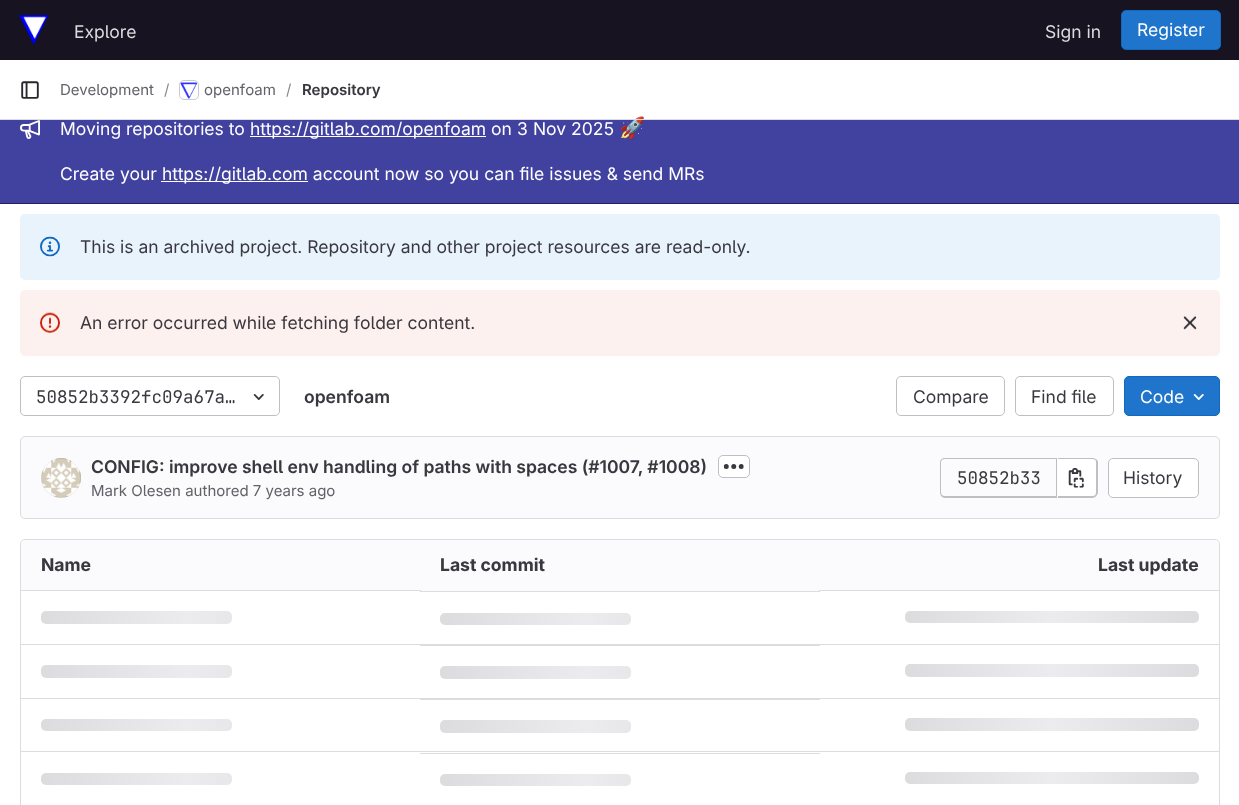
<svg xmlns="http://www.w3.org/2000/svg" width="1239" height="805">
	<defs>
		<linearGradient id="g1" gradientUnits="userSpaceOnUse" x1="41" y1="611" x2="335" y2="611"><stop offset="0" stop-color="#DCDCDE" /><stop offset="0.5" stop-color="#ECECEF" /><stop offset="1" stop-color="#DCDCDE" /></linearGradient>
		<linearGradient id="g2" gradientUnits="userSpaceOnUse" x1="440" y1="613" x2="734" y2="613"><stop offset="0" stop-color="#DCDCDE" /><stop offset="0.5" stop-color="#ECECEF" /><stop offset="1" stop-color="#DCDCDE" /></linearGradient>
		<linearGradient id="g3" gradientUnits="userSpaceOnUse" x1="905" y1="611" x2="1199" y2="611"><stop offset="0" stop-color="#DCDCDE" /><stop offset="0.5" stop-color="#ECECEF" /><stop offset="1" stop-color="#DCDCDE" /></linearGradient>
		<linearGradient id="g4" gradientUnits="userSpaceOnUse" x1="41" y1="665" x2="335" y2="665"><stop offset="0" stop-color="#DCDCDE" /><stop offset="0.5" stop-color="#ECECEF" /><stop offset="1" stop-color="#DCDCDE" /></linearGradient>
		<linearGradient id="g5" gradientUnits="userSpaceOnUse" x1="440" y1="666" x2="734" y2="666"><stop offset="0" stop-color="#DCDCDE" /><stop offset="0.5" stop-color="#ECECEF" /><stop offset="1" stop-color="#DCDCDE" /></linearGradient>
		<linearGradient id="g6" gradientUnits="userSpaceOnUse" x1="905" y1="664" x2="1199" y2="664"><stop offset="0" stop-color="#DCDCDE" /><stop offset="0.5" stop-color="#ECECEF" /><stop offset="1" stop-color="#DCDCDE" /></linearGradient>
		<linearGradient id="g7" gradientUnits="userSpaceOnUse" x1="41" y1="719" x2="335" y2="719"><stop offset="0" stop-color="#DCDCDE" /><stop offset="0.5" stop-color="#ECECEF" /><stop offset="1" stop-color="#DCDCDE" /></linearGradient>
		<linearGradient id="g8" gradientUnits="userSpaceOnUse" x1="440" y1="720" x2="734" y2="720"><stop offset="0" stop-color="#DCDCDE" /><stop offset="0.5" stop-color="#ECECEF" /><stop offset="1" stop-color="#DCDCDE" /></linearGradient>
		<linearGradient id="g9" gradientUnits="userSpaceOnUse" x1="905" y1="718" x2="1199" y2="718"><stop offset="0" stop-color="#DCDCDE" /><stop offset="0.5" stop-color="#ECECEF" /><stop offset="1" stop-color="#DCDCDE" /></linearGradient>
		<linearGradient id="g10" gradientUnits="userSpaceOnUse" x1="41" y1="773" x2="335" y2="773"><stop offset="0" stop-color="#DCDCDE" /><stop offset="0.5" stop-color="#ECECEF" /><stop offset="1" stop-color="#DCDCDE" /></linearGradient>
		<linearGradient id="g11" gradientUnits="userSpaceOnUse" x1="440" y1="774" x2="734" y2="774"><stop offset="0" stop-color="#DCDCDE" /><stop offset="0.5" stop-color="#ECECEF" /><stop offset="1" stop-color="#DCDCDE" /></linearGradient>
		<linearGradient id="g12" gradientUnits="userSpaceOnUse" x1="905" y1="772" x2="1199" y2="772"><stop offset="0" stop-color="#DCDCDE" /><stop offset="0.5" stop-color="#ECECEF" /><stop offset="1" stop-color="#DCDCDE" /></linearGradient>
	</defs>
	<rect width="100%" height="100%" fill="#FFFFFF" />
	<rect x="0" y="0" width="1239" height="60" fill="#171321" />
	<image x="18" y="15" width="31" height="30" href="assets/img1.png" />
	<g font-family="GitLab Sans" font-size="17.5" fill="#DCDCDE">
		<text x="74" y="38">Explore</text>
		<text x="1045" y="38">Sign in</text>
	</g>
	<rect x="1121.5" y="10.5" width="99" height="39" rx="4.5" fill="#1F75CB" stroke="#1068BF" />
	<text x="1137" y="36" font-family="GitLab Sans" font-size="17.5" fill="#FFFFFF">Register</text>
	<rect x="0" y="120" width="1239" height="83" fill="#41419F" />
	<text x="619" y="135" font-family="Noto Color Emoji" font-size="21" fill="#FFFFFF">🚀</text>
	<rect x="0" y="119" width="1239" height="1" fill="#DCDCDE" />
	<image x="21" y="81" width="18" height="18" href="assets/img2.png" />
	<text x="60" y="95" font-family="GitLab Sans" font-size="15" fill="#626168">Development</text>
	<text x="164" y="95" font-family="GitLab Sans" font-size="15" fill="#89888D">/</text>
	<rect x="179.5" y="80.5" width="19" height="19" rx="4.5" fill="none" stroke="#DCDCDE" />
	<image x="180" y="82" width="18" height="17" href="assets/img3.png" />
	<rect x="179.5" y="80.5" width="19" height="19" rx="4.5" fill="none" stroke="#050506" stroke-opacity="0.08" />
	<text x="204" y="95" font-family="GitLab Sans" font-size="15" fill="#626168">openfoam</text>
	<text x="286" y="95" font-family="GitLab Sans" font-size="15" fill="#89888D">/</text>
	<text x="302" y="95" font-family="GitLab Sans" font-size="15" font-weight="600" fill="#3A383F">Repository</text>
	<rect x="0" y="203" width="1239" height="1" fill="#222261" />
	<image x="20" y="120" width="20" height="19" href="assets/img4.png" />
	<text x="60" y="135" font-family="GitLab Sans" font-size="17.5" fill="#FFFFFF">Moving repositories to</text>
	<rect x="250" y="136" width="236" height="1" fill="#FFFFFF" />
	<g font-family="GitLab Sans" font-size="17.5" fill="#FFFFFF">
		<text x="250" y="135">https://gitlab.com/openfoam on 3 Nov 2025</text>
		<text x="60" y="180">Create your</text>
	</g>
	<rect x="161" y="181" width="147" height="1" fill="#FFFFFF" />
	<text x="162" y="180" font-family="GitLab Sans" font-size="17.5" fill="#FFFFFF">https://gitlab.com account now so you can file issues &amp; send MRs</text>
	<rect x="20" y="214" width="1200" height="66" rx="5" fill="#E9F3FC" />
	<image x="40" y="236" width="20" height="21" href="assets/img5.png" />
	<text x="80" y="253" font-family="GitLab Sans" font-size="17.5" fill="#3A383F">This is an archived project. Repository and other project resources are read-only.</text>
	<rect x="20" y="290" width="1200" height="66" rx="5" fill="#FCF1EF" />
	<image x="40" y="312" width="20" height="21" href="assets/img6.png" />
	<text x="80" y="329" font-family="GitLab Sans" font-size="17.5" fill="#3A383F">An error occurred while fetching folder content.</text>
	<image x="1183" y="315" width="14" height="15" href="assets/img7.png" />
	<rect x="20.5" y="376.5" width="259" height="39" rx="4.5" fill="none" stroke="#BFBFC3" />
	<text x="36" y="403" font-family="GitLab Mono" font-size="17.5" fill="#3A383F">50852b3392fc09a67a…</text>
	<image x="253" y="394" width="11" height="6" href="assets/img8.png" />
	<text x="304" y="403" font-family="GitLab Sans" font-size="17.5" font-weight="600" fill="#3A383F">openfoam</text>
	<rect x="896.5" y="376.5" width="108" height="39" rx="4.5" fill="none" stroke="#BFBFC3" />
	<text x="913" y="403" font-family="GitLab Sans" font-size="17.5" fill="#3A383F">Compare</text>
	<rect x="1015.5" y="376.5" width="98" height="39" rx="4.5" fill="none" stroke="#BFBFC3" />
	<text x="1031" y="403" font-family="GitLab Sans" font-size="17.5" fill="#3A383F">Find file</text>
	<rect x="1124.5" y="376.5" width="95" height="39" rx="4.5" fill="#1F75CB" stroke="#1068BF" />
	<text x="1140" y="403" font-family="GitLab Sans" font-size="17.5" fill="#FFFFFF">Code</text>
	<image x="1193" y="394" width="11" height="6" href="assets/img9.png" />
	<rect x="20.5" y="436.5" width="1199" height="82" rx="4.5" fill="#FBFAFD" stroke="#DCDCDE" />
	<image x="41" y="458" width="40" height="40" href="assets/img10.png" />
	<circle cx="61" cy="478" r="19.5" fill="none" stroke="#050506" stroke-opacity="0.08" />
	<text x="91" y="473" font-family="GitLab Sans" font-size="17.5" font-weight="600" fill="#3A383F">CONFIG: improve shell env handling of paths with spaces (#1007, #1008)</text>
	<rect x="718.5" y="455.5" width="31" height="22" rx="4.5" fill="#FFFFFF" stroke="#BFBFC3" />
	<image x="723" y="464" width="21" height="5" href="assets/img11.png" />
	<text x="91" y="496" font-family="GitLab Sans" font-size="15" fill="#626168">Mark Olesen authored 7 years ago</text>
	<path d="M945 458H1056V498H945C942 498 940 495 940 492V462C940 460 942 458 945 458ZM945 459H1056V496H945C943 496 941 495 941 492V462C941 460 943 459 945 459Z" fill="#BFBFC3" fill-rule="evenodd" />
	<text x="957" y="484" font-family="GitLab Mono" font-size="17.5" fill="#3A383F">50852b33</text>
	<path d="M1058 459H1092C1094 459 1096 461 1096 463V492C1096 494 1094 496 1092 496H1058Z" fill="#FFFFFF" />
	<path d="M1058 458H1092C1095 458 1098 460 1098 462V492C1098 495 1095 498 1092 498H1058ZM1058 459H1092C1095 459 1096 460 1096 462V492C1096 495 1095 496 1092 496H1058Z" fill="#BFBFC3" fill-rule="evenodd" />
	<rect x="1056" y="458" width="1" height="40" fill="#BFBFC3" />
	<image x="1068" y="468" width="16" height="20" href="assets/img12.png" />
	<rect x="1108.5" y="458.5" width="90" height="39" rx="4.5" fill="#FFFFFF" stroke="#BFBFC3" />
	<text x="1123" y="484" font-family="GitLab Sans" font-size="17.5" fill="#3A383F">History</text>
	<rect x="20.5" y="539.5" width="1199" height="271" rx="4.5" fill="none" stroke="#DCDCDE" />
	<path d="M25 540H420V591H21V544C21 542 23 540 25 540Z" fill="#FBFAFD" />
	<text x="41" y="571" font-family="GitLab Sans" font-size="17.5" font-weight="700" fill="#3A383F">Name</text>
	<rect x="420" y="540" width="400" height="51" fill="#FBFAFD" />
	<text x="440" y="571" font-family="GitLab Sans" font-size="17.5" font-weight="700" fill="#3A383F">Last commit</text>
	<path d="M820 540H1215C1217 540 1219 542 1219 544V591H820Z" fill="#FBFAFD" />
	<text x="1098" y="571" font-family="GitLab Sans" font-size="17.5" font-weight="700" fill="#3A383F">Last update</text>
	<rect x="21" y="644" width="1198" height="1" fill="#DCDCDE" />
	<rect x="21" y="590" width="400" height="1" fill="#DCDCDE" />
	<rect x="41" y="611" width="191" height="13" rx="5" fill="url(#g1)" />
	<rect x="420" y="591" width="400" height="1" fill="#DCDCDE" />
	<rect x="440" y="613" width="191" height="12" rx="5" fill="url(#g2)" />
	<rect x="819" y="590" width="400" height="1" fill="#DCDCDE" />
	<rect x="905" y="611" width="294" height="12" rx="5" fill="url(#g3)" />
	<rect x="21" y="698" width="1198" height="1" fill="#DCDCDE" />
	<rect x="41" y="665" width="191" height="13" rx="5" fill="url(#g4)" />
	<rect x="420" y="645" width="400" height="1" fill="#DCDCDE" />
	<rect x="440" y="666" width="191" height="13" rx="5" fill="url(#g5)" />
	<rect x="905" y="664" width="294" height="13" rx="5" fill="url(#g6)" />
	<rect x="21" y="751" width="1198" height="1" fill="#DCDCDE" />
	<rect x="41" y="719" width="191" height="12" rx="5" fill="url(#g7)" />
	<rect x="420" y="699" width="400" height="1" fill="#DCDCDE" />
	<rect x="440" y="720" width="191" height="13" rx="5" fill="url(#g8)" />
	<rect x="905" y="718" width="294" height="13" rx="5" fill="url(#g9)" />
	<rect x="41" y="773" width="191" height="12" rx="5" fill="url(#g10)" />
	<rect x="420" y="753" width="400" height="1" fill="#DCDCDE" />
	<rect x="440" y="774" width="191" height="12" rx="5" fill="url(#g11)" />
	<rect x="905" y="772" width="294" height="12" rx="5" fill="url(#g12)" />
</svg>
